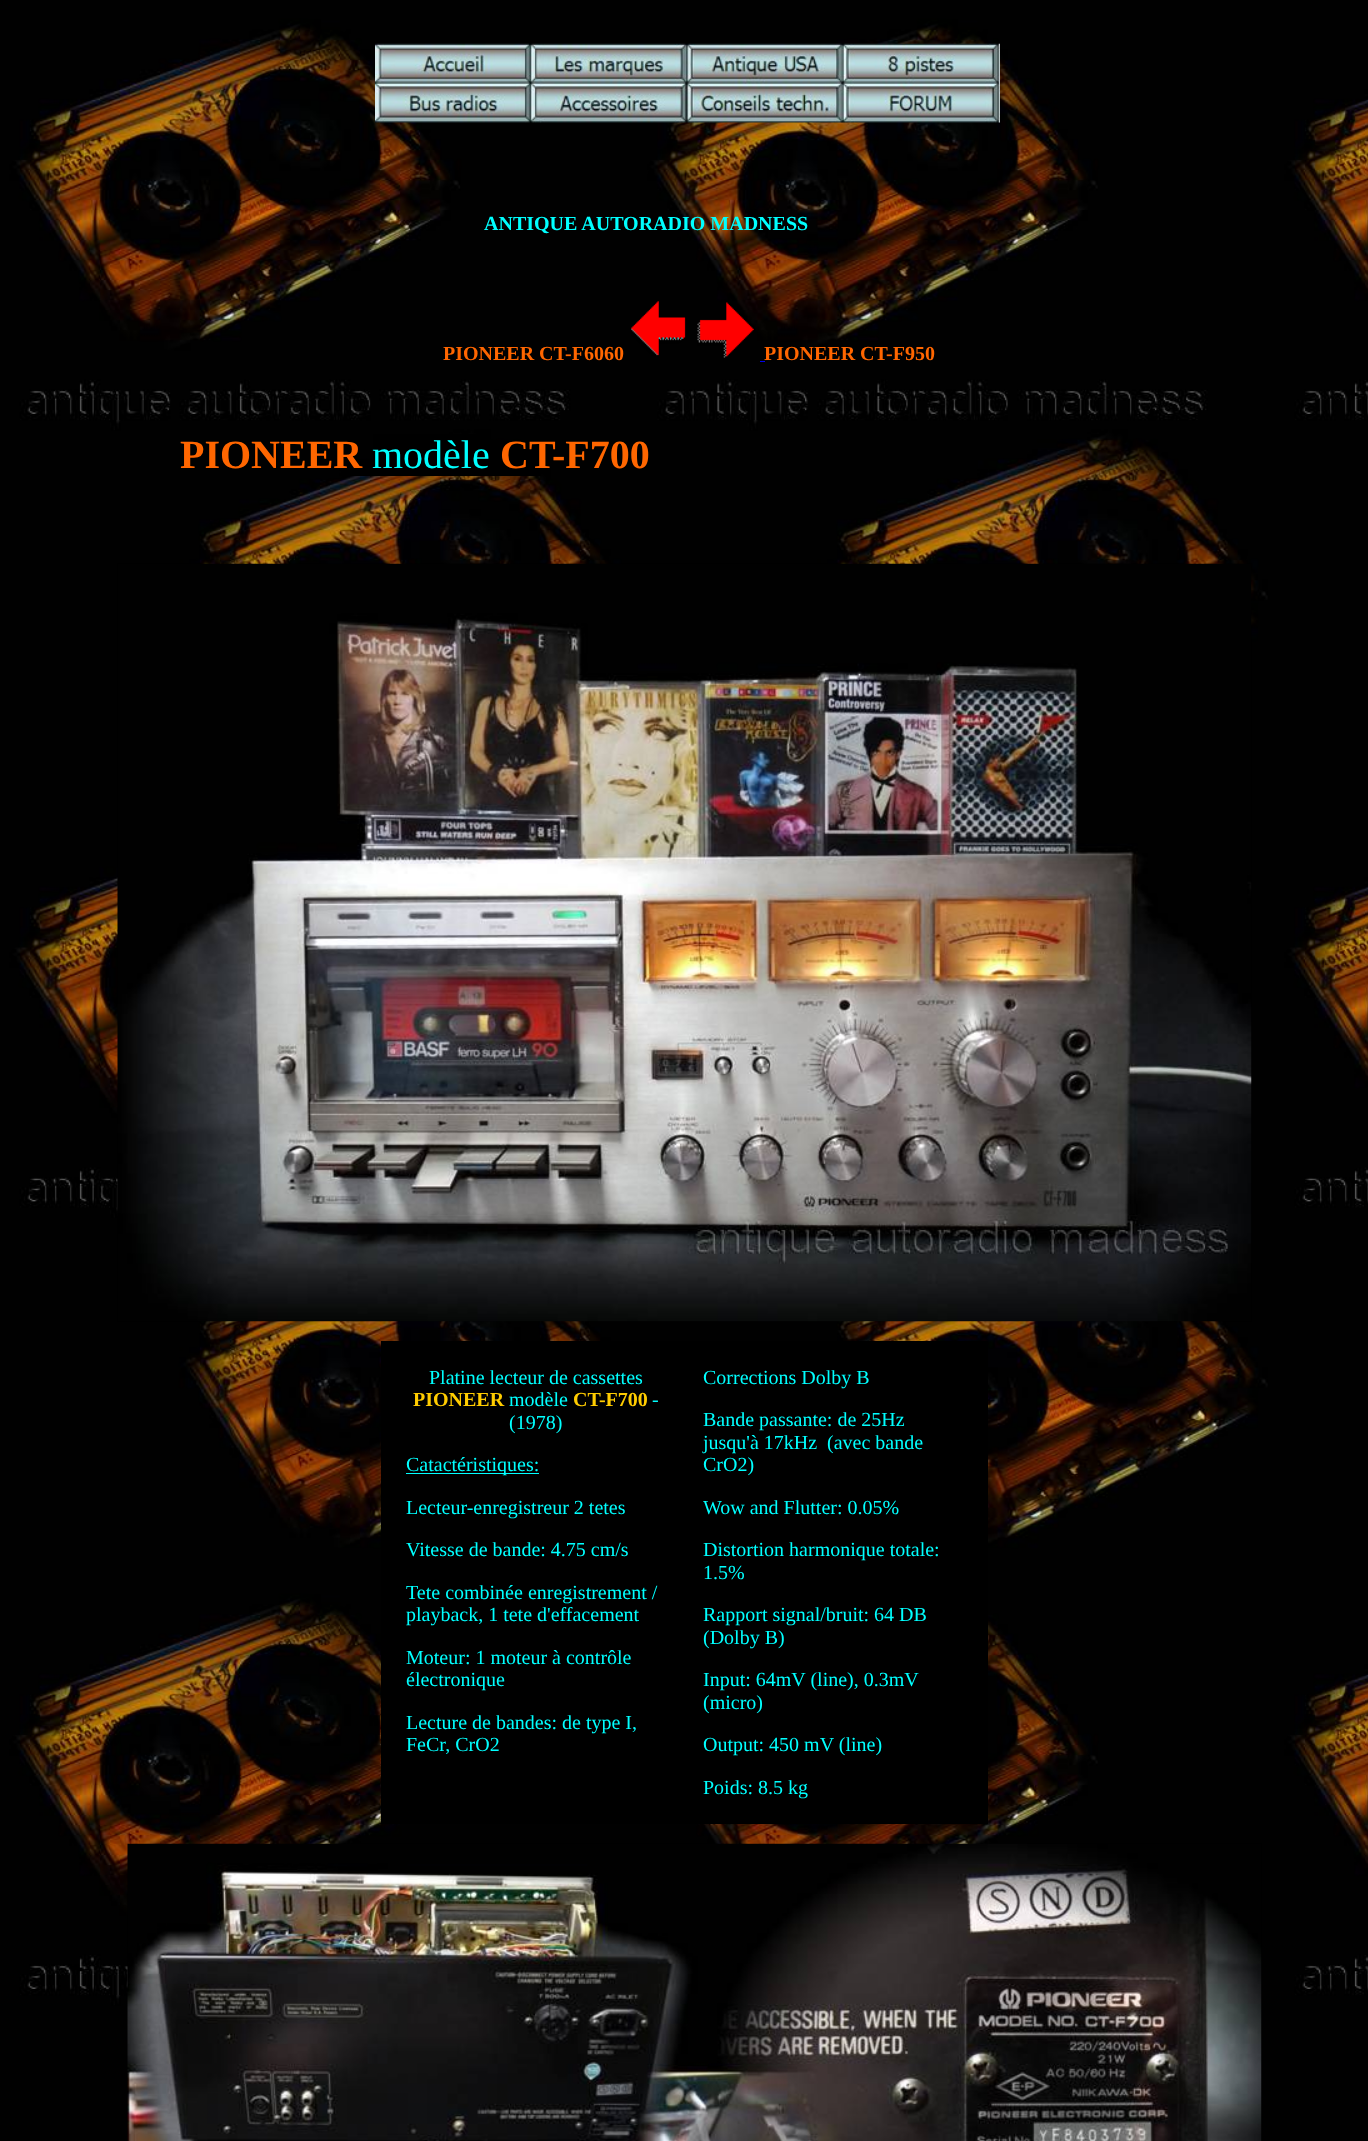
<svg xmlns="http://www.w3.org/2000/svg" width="1368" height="2141">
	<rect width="100%" height="100%" fill="#FFFFFF" />
	<image x="0" y="0" width="1368" height="2141" href="assets/img1.png" />
	<image x="375" y="43" width="625" height="80" href="assets/img2.png" />
	<text x="484" y="230" font-family="Liberation Serif" font-size="20" font-weight="700" fill="#00FFFF">ANTIQUE AUTORADIO MADNESS</text>
	<text x="443" y="360" font-family="Liberation Serif" font-size="20" font-weight="700" fill="#FF6600">PIONEER CT-F6060</text>
	<image x="631" y="301" width="55" height="55" href="assets/img3.png" />
	<image x="697" y="302" width="57" height="56" href="assets/img4.png" />
	<text x="764" y="360" font-family="Liberation Serif" font-size="20" font-weight="700" fill="#FF6600">PIONEER CT-F950</text>
	<rect x="760" y="361" width="5" height="1" fill="#0000EE" />
	<rect x="341" y="459" width="32" height="17" fill="#000000" />
	<text x="180" y="468" font-family="Liberation Serif" font-size="40" font-weight="700" fill="#FF6600">PIONEER</text>
	<rect x="373" y="434" width="117" height="42" fill="#000000" />
	<text x="372" y="468" font-family="Liberation Serif" font-size="40" fill="#00FFFF">modèle</text>
	<rect x="490" y="440" width="51" height="36" fill="#000000" />
	<text x="500" y="468" font-family="Liberation Serif" font-size="40" font-weight="700" fill="#FF6600">CT-F700</text>
	<image x="117" y="563" width="1135" height="759" href="assets/img5.png" />
	<rect x="381" y="1341" width="607" height="483" fill="#000000" />
	<text x="429" y="1384" font-family="Liberation Serif" font-size="20" fill="#00FFFF">Platine lecteur de cassettes</text>
	<text x="413" y="1406" font-family="Liberation Serif" font-size="20" font-weight="700" fill="#FFCC00">PIONEER</text>
	<text x="509" y="1406" font-family="Liberation Serif" font-size="20" fill="#00FFFF">modèle</text>
	<text x="573" y="1406" font-family="Liberation Serif" font-size="20" font-weight="700" fill="#FFCC00">CT-F700</text>
	<g font-family="Liberation Serif" font-size="20" fill="#00FFFF">
		<text x="652" y="1406">-</text>
		<text x="509" y="1429">(1978)</text>
	</g>
	<rect x="406" y="1473" width="133" height="1" fill="#00FFFF" />
	<g font-family="Liberation Serif" font-size="20" fill="#00FFFF">
		<text x="406" y="1471">Catactéristiques:</text>
		<text x="406" y="1514">Lecteur-enregistreur 2 tetes</text>
		<text x="406" y="1556">Vitesse de bande: 4.75 cm/s</text>
		<text x="406" y="1599">Tete combinée enregistrement /</text>
		<text x="406" y="1621">playback, 1 tete d'effacement</text>
		<text x="406" y="1664">Moteur: 1 moteur à contrôle</text>
		<text x="406" y="1686">électronique</text>
		<text x="406" y="1729">Lecture de bandes: de type I,</text>
		<text x="406" y="1751">FeCr, CrO2</text>
		<text x="703" y="1384">Corrections Dolby B</text>
		<text x="703" y="1426">Bande passante: de 25Hz</text>
		<text x="703" y="1449">jusqu'à 17kHz</text>
		<text x="827" y="1449">(avec bande</text>
		<text x="703" y="1471">CrO2)</text>
		<text x="703" y="1514">Wow and Flutter: 0.05%</text>
		<text x="703" y="1556">Distortion harmonique totale:</text>
		<text x="703" y="1579">1.5%</text>
		<text x="703" y="1621">Rapport signal/bruit: 64 DB</text>
		<text x="703" y="1644">(Dolby B)</text>
		<text x="703" y="1686">Input: 64mV (line), 0.3mV</text>
		<text x="703" y="1709">(micro)</text>
		<text x="703" y="1751">Output: 450 mV (line)</text>
		<text x="703" y="1794">Poids: 8.5 kg</text>
	</g>
	<image x="127" y="1843" width="1135" height="298" href="assets/img6.png" />
</svg>
